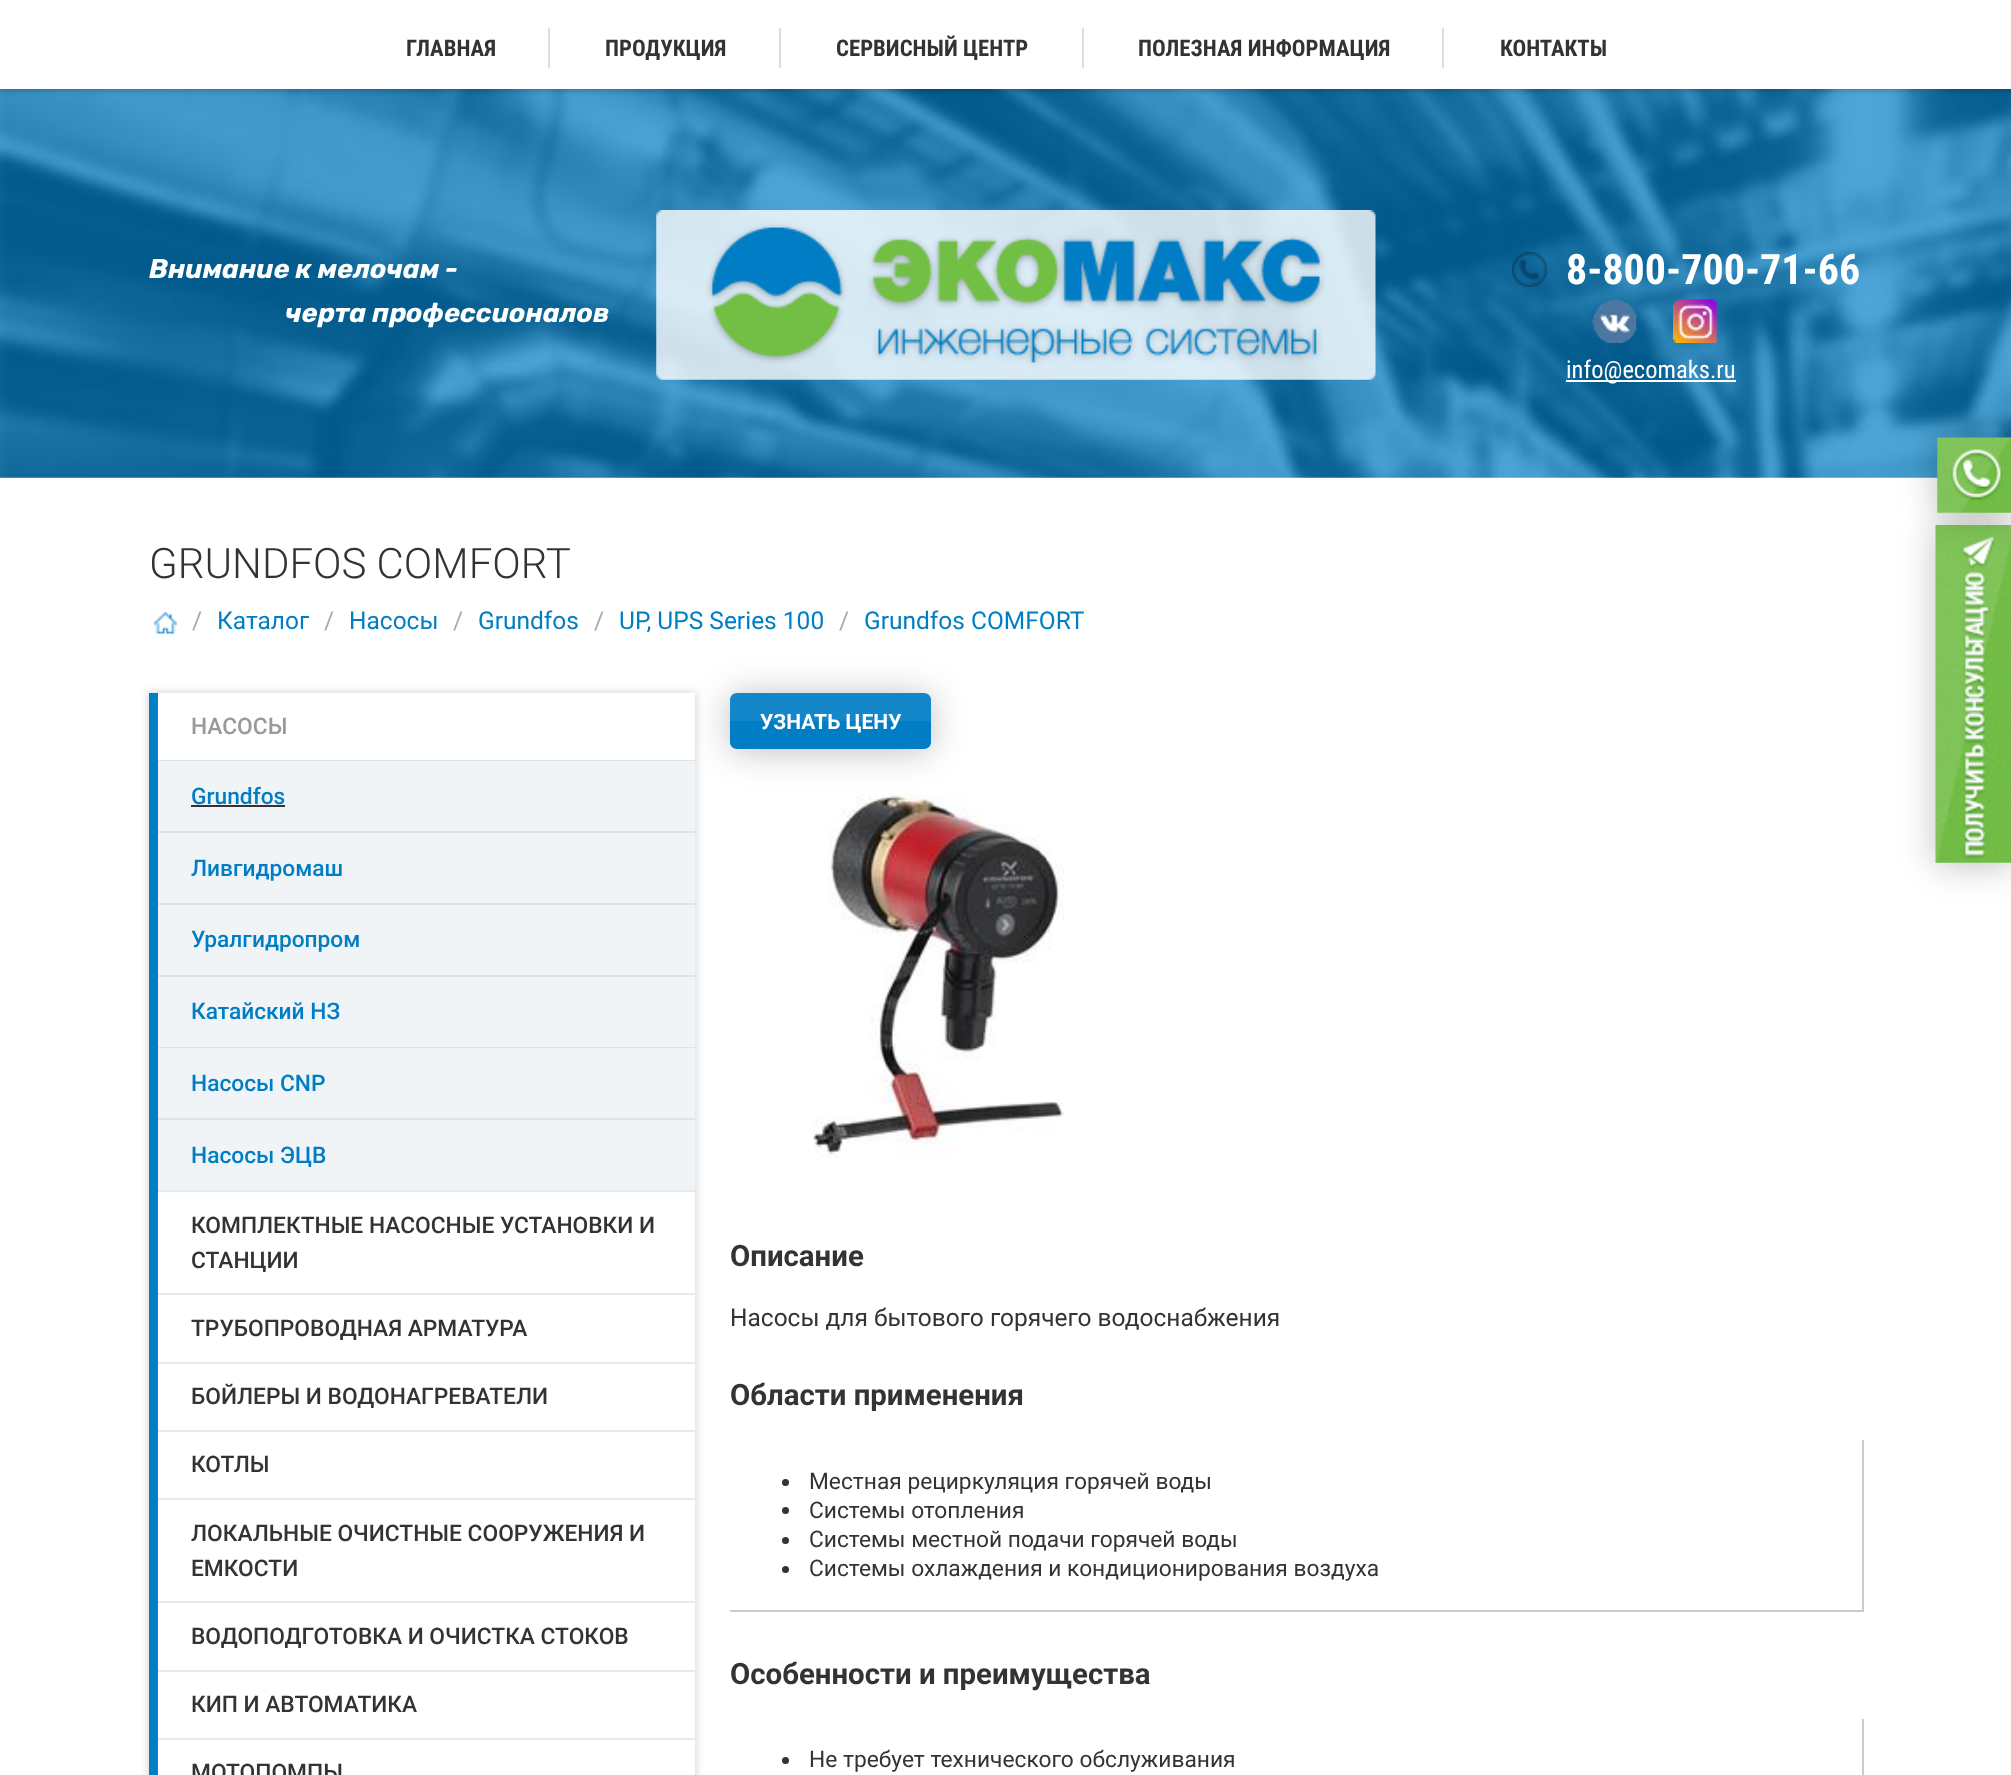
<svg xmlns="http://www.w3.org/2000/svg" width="2011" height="1775">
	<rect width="100%" height="100%" fill="#FFFFFF" />
	<image x="0" y="89" width="2011" height="389" href="assets/img1.png" />
	<rect x="0" y="2" width="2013" height="89" fill="#000000" fill-opacity="0.2" filter="blur(2.5px)" />
	<rect x="0" y="0" width="2011" height="89" fill="#FFFFFF" />
	<rect x="548" y="28" width="2" height="40" fill="#DDDDDD" />
	<text x="406" y="56" font-family="Roboto Condensed" font-size="22.75" font-weight="700" fill="#333333">ГЛАВНАЯ</text>
	<rect x="779" y="28" width="2" height="40" fill="#DDDDDD" />
	<text x="605" y="56" font-family="Roboto Condensed" font-size="22.75" font-weight="700" fill="#333333">ПРОДУКЦИЯ</text>
	<rect x="1082" y="28" width="2" height="40" fill="#DDDDDD" />
	<text x="836" y="56" font-family="Roboto Condensed" font-size="22.75" font-weight="700" fill="#333333">СЕРВИСНЫЙ ЦЕНТР</text>
	<rect x="1442" y="28" width="2" height="40" fill="#DDDDDD" />
	<g font-family="Roboto Condensed" font-size="22.75" font-weight="700" fill="#333333">
		<text x="1138" y="56">ПОЛЕЗНАЯ ИНФОРМАЦИЯ</text>
		<text x="1500" y="56">КОНТАКТЫ</text>
	</g>
	<g font-family="Rubik" font-size="27" font-weight="700" font-style="italic" fill="#FFFFFF">
		<text x="149" y="278">Внимание к мелочам -</text>
		<text x="285" y="322">черта профессионалов</text>
	</g>
	<image x="656" y="210" width="720" height="170" href="assets/img2.png" />
	<image x="1512" y="252" width="35" height="35" href="assets/img3.png" />
	<text x="1566" y="284" font-family="Roboto Condensed" font-size="42" font-weight="700" fill="#FFFFFF">8-800-700-71-66</text>
	<image x="1592" y="299" width="45" height="44" href="assets/img4.png" />
	<image x="1673" y="299" width="44" height="44" href="assets/img5.png" />
	<rect x="1566" y="380" width="170" height="2" fill="#FFFFFF" />
	<text x="1566" y="378" font-family="Roboto Condensed" font-size="24.5" fill="#FFFFFF">info@ecomaks.ru</text>
	<rect x="1936" y="527" width="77" height="338" fill="#000000" fill-opacity="0.25" filter="blur(17.5px)" />
	<image x="1935" y="525" width="76" height="338" href="assets/img9.png" />
	<rect x="1937" y="439" width="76" height="76" fill="#000000" fill-opacity="0.25" filter="blur(17.5px)" />
	<image x="1937" y="437" width="74" height="76" href="assets/img6.png" />
	<text x="149" y="578" font-family="Roboto" font-size="42" font-weight="300" fill="#333333">GRUNDFOS COMFORT</text>
	<image x="154" y="612" width="23" height="22" href="assets/img7.png" />
	<text x="192" y="629" font-family="Roboto" font-size="24.5" fill="#AAAAAA">/</text>
	<text x="217" y="629" font-family="Roboto" font-size="24.5" fill="#007EC5">Каталог</text>
	<text x="324" y="629" font-family="Roboto" font-size="24.5" fill="#AAAAAA">/</text>
	<text x="349" y="629" font-family="Roboto" font-size="24.5" fill="#007EC5">Насосы</text>
	<text x="453" y="629" font-family="Roboto" font-size="24.5" fill="#AAAAAA">/</text>
	<text x="478" y="629" font-family="Roboto" font-size="24.5" fill="#007EC5">Grundfos</text>
	<text x="594" y="629" font-family="Roboto" font-size="24.5" fill="#AAAAAA">/</text>
	<text x="619" y="629" font-family="Roboto" font-size="24.5" fill="#007EC5">UP, UPS Series 100</text>
	<text x="839" y="629" font-family="Roboto" font-size="24.5" fill="#AAAAAA">/</text>
	<text x="864" y="629" font-family="Roboto" font-size="24.5" fill="#007EC5">Grundfos COMFORT</text>
	<rect x="149" y="693" width="546" height="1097" fill="#000000" fill-opacity="0.2" filter="blur(5px)" />
	<image x="813" y="794" width="251" height="364" href="assets/img8.png" />
	<rect x="730" y="695" width="201" height="56" rx="7" fill="#000000" fill-opacity="0.25" filter="blur(17.5px)" />
	<rect x="158" y="693" width="537" height="1082" fill="#FFFFFF" />
	<rect x="149" y="693" width="9" height="1082" fill="#007EC6" />
	<rect x="158" y="1190" width="537" height="2" fill="#E6EAEC" />
	<text x="191" y="734" font-family="Roboto" font-size="22.75" font-weight="500" fill="#999999">НАСОСЫ</text>
	<rect x="158" y="760" width="537" height="1" fill="#E0E3E6" />
	<rect x="158" y="831" width="537" height="2" fill="#E0E3E6" />
	<rect x="158" y="761" width="537" height="70" fill="#F0F4F7" />
	<text x="191" y="804" font-family="Roboto" font-size="22.75" font-weight="500" fill="#007EC5">Grundfos</text>
	<rect x="191" y="805" width="94" height="2" fill="#333333" />
	<rect x="158" y="903" width="537" height="2" fill="#E0E3E6" />
	<rect x="158" y="833" width="537" height="70" fill="#F0F4F7" />
	<text x="191" y="876" font-family="Roboto" font-size="22.75" font-weight="500" fill="#007EC5">Ливгидромаш</text>
	<rect x="158" y="975" width="537" height="2" fill="#E0E3E6" />
	<rect x="158" y="905" width="537" height="70" fill="#F0F4F7" />
	<text x="191" y="947" font-family="Roboto" font-size="22.75" font-weight="500" fill="#007EC5">Уралгидропром</text>
	<rect x="158" y="1047" width="537" height="1" fill="#E0E3E6" />
	<rect x="158" y="977" width="537" height="70" fill="#F0F4F7" />
	<text x="191" y="1019" font-family="Roboto" font-size="22.75" font-weight="500" fill="#007EC5">Катайский НЗ</text>
	<rect x="158" y="1118" width="537" height="2" fill="#E0E3E6" />
	<rect x="158" y="1048" width="537" height="70" fill="#F0F4F7" />
	<text x="191" y="1091" font-family="Roboto" font-size="22.75" font-weight="500" fill="#007EC5">Насосы CNP</text>
	<rect x="158" y="1120" width="537" height="70" fill="#F0F4F7" />
	<text x="191" y="1163" font-family="Roboto" font-size="22.75" font-weight="500" fill="#007EC5">Насосы ЭЦB</text>
	<rect x="158" y="1293" width="537" height="2" fill="#E6EAEC" />
	<g font-family="Roboto" font-size="22.75" font-weight="500" fill="#333333">
		<text x="191" y="1233">КОМПЛЕКТНЫЕ НАСОСНЫЕ УСТАНОВКИ И</text>
		<text x="191" y="1268">СТАНЦИИ</text>
	</g>
	<rect x="158" y="1362" width="537" height="2" fill="#E6EAEC" />
	<text x="191" y="1336" font-family="Roboto" font-size="22.75" font-weight="500" fill="#333333">ТРУБОПРОВОДНАЯ АРМАТУРА</text>
	<rect x="158" y="1430" width="537" height="2" fill="#E6EAEC" />
	<text x="191" y="1404" font-family="Roboto" font-size="22.75" font-weight="500" fill="#333333">БОЙЛЕРЫ И ВОДОНАГРЕВАТЕЛИ</text>
	<rect x="158" y="1498" width="537" height="2" fill="#E6EAEC" />
	<text x="191" y="1472" font-family="Roboto" font-size="22.75" font-weight="500" fill="#333333">КОТЛЫ</text>
	<rect x="158" y="1601" width="537" height="2" fill="#E6EAEC" />
	<g font-family="Roboto" font-size="22.75" font-weight="500" fill="#333333">
		<text x="191" y="1541">ЛОКАЛЬНЫЕ ОЧИСТНЫЕ СООРУЖЕНИЯ И</text>
		<text x="191" y="1576">ЕМКОСТИ</text>
	</g>
	<rect x="158" y="1670" width="537" height="2" fill="#E6EAEC" />
	<text x="191" y="1644" font-family="Roboto" font-size="22.75" font-weight="500" fill="#333333">ВОДОПОДГОТОВКА И ОЧИСТКА СТОКОВ</text>
	<rect x="158" y="1738" width="537" height="2" fill="#E6EAEC" />
	<g font-family="Roboto" font-size="22.75" font-weight="500" fill="#333333">
		<text x="191" y="1712">КИП И АВТОМАТИКА</text>
		<text x="191" y="1780">МОТОПОМПЫ</text>
	</g>
	<path d="M737 693H924C928 693 931 696 931 700V721H730V700C730 696 733 693 737 693Z" fill="#1487CA" />
	<path d="M730 721H931V742C931 746 928 749 924 749H737C733 749 730 746 730 742Z" fill="#007DC5" />
	<text x="760" y="729" font-family="Roboto" font-size="21" font-weight="700" fill="#FFFFFF">УЗНАТЬ ЦЕНУ</text>
	<text x="730" y="1266" font-family="Roboto" font-size="29.4" font-weight="700" fill="#333333">Описание</text>
	<text x="730" y="1326" font-family="Roboto" font-size="24.5" fill="#333333">Насосы для бытового горячего водоснабжения</text>
	<text x="730" y="1405" font-family="Roboto" font-size="29.4" font-weight="700" fill="#333333">Области применения</text>
	<rect x="1862" y="1440" width="2" height="172" fill="#CBCBCB" />
	<rect x="730" y="1610" width="1134" height="2" fill="#CBCBCB" />
	<circle cx="785.5" cy="1482.5" r="3.5" fill="#333333" />
	<text x="809" y="1489" font-family="Roboto" font-size="22.75" fill="#333333">Местная рециркуляция горячей воды</text>
	<circle cx="785.5" cy="1510.5" r="3.5" fill="#333333" />
	<text x="809" y="1518" font-family="Roboto" font-size="22.75" fill="#333333">Системы отопления</text>
	<circle cx="785.5" cy="1540.5" r="3.5" fill="#333333" />
	<text x="809" y="1547" font-family="Roboto" font-size="22.75" fill="#333333">Системы местной подачи горячей воды</text>
	<circle cx="785.5" cy="1569.5" r="3.5" fill="#333333" />
	<text x="809" y="1576" font-family="Roboto" font-size="22.75" fill="#333333">Системы охлаждения и кондиционирования воздуха</text>
	<text x="730" y="1684" font-family="Roboto" font-size="29.4" font-weight="700" fill="#333333">Особенности и преимущества</text>
	<rect x="1862" y="1719" width="2" height="56" fill="#CBCBCB" />
	<circle cx="785.5" cy="1760.5" r="3.5" fill="#333333" />
	<text x="809" y="1767" font-family="Roboto" font-size="22.75" fill="#333333">Не требует технического обслуживания</text>
</svg>
